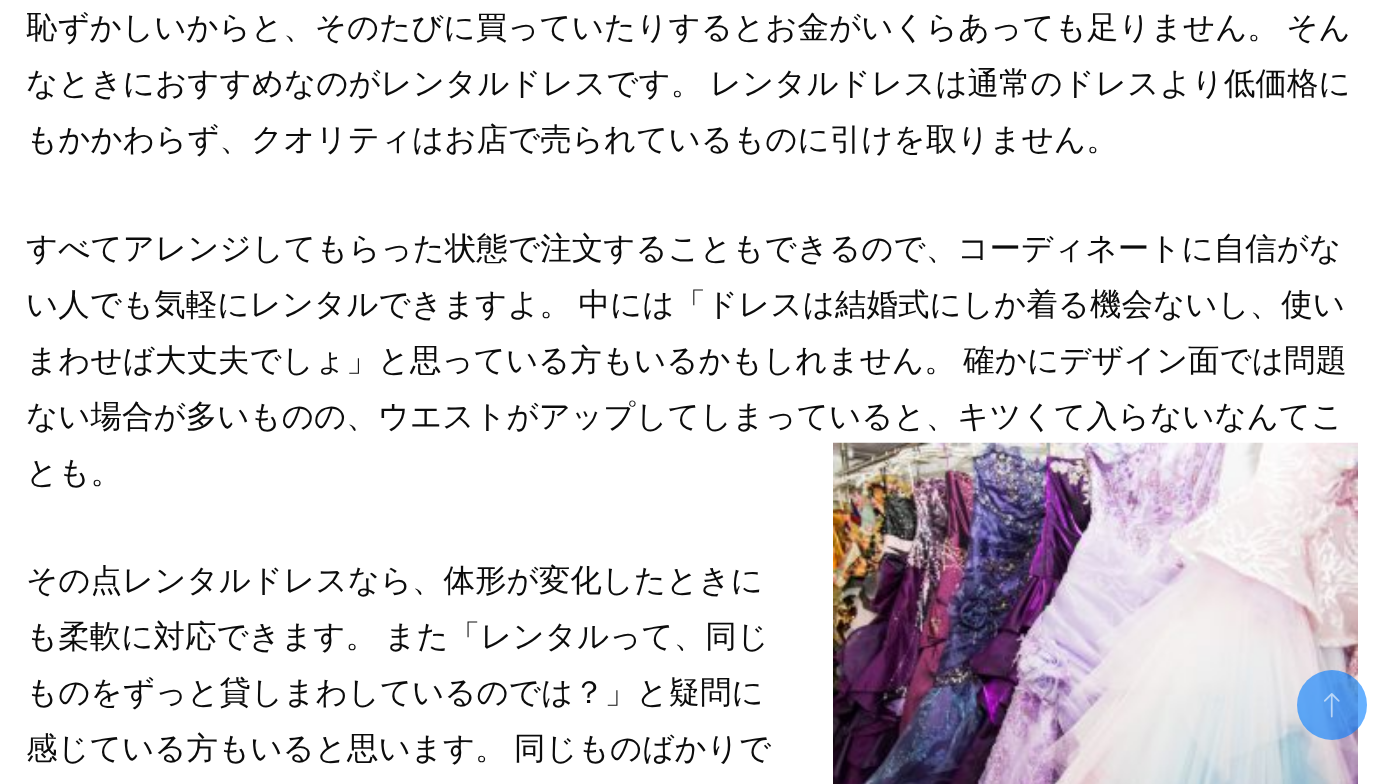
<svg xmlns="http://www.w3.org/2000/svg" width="1384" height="784">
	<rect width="100%" height="100%" fill="#FFFFFF" />
	<g font-family="WenQuanYi Zen Hei" font-size="31.5" font-weight="500" fill="#0C0C0C">
		<text x="26" y="38" word-spacing="-2">恥ずかしいからと、そのたびに買っていたりするとお金がいくらあっても足りません。 そん</text>
		<text x="26" y="94" word-spacing="-2">なときにおすすめなのがレンタルドレスです。 レンタルドレスは通常のドレスより低価格に</text>
		<text x="26" y="150">もかかわらず、クオリティはお店で売られているものに引けを取りません。</text>
		<text x="26" y="259">すべてアレンジしてもらった状態で注文することもできるので、コーディネートに自信がな</text>
		<text x="26" y="315" word-spacing="-2">い人でも気軽にレンタルできますよ。 中には「ドレスは結婚式にしか着る機会ないし、使い</text>
		<text x="26" y="371" word-spacing="-2">まわせば大丈夫でしょ」と思っている方もいるかもしれません。 確かにデザイン面では問題</text>
		<text x="26" y="427">ない場合が多いものの、ウエストがアップしてしまっていると、キツくて入らないなんてこ</text>
		<text x="26" y="483">とも。</text>
	</g>
	<image x="833" y="442" width="525" height="342" href="assets/img1.png" />
	<g font-family="WenQuanYi Zen Hei" font-size="31.5" font-weight="500" fill="#0C0C0C">
		<text x="26" y="591">その点レンタルドレスなら、体形が変化したときに</text>
		<text x="26" y="647" word-spacing="-2">も柔軟に対応できます。 また「レンタルって、同じ</text>
		<text x="26" y="703">ものをずっと貸しまわしているのでは？」と疑問に</text>
		<text x="26" y="759" word-spacing="-2">感じている方もいると思います。 同じものばかりで</text>
	</g>
	<circle cx="1332" cy="705" r="35" fill="#007BFF" fill-opacity="0.6" />
	<image x="1324" y="693" width="16" height="25" href="assets/img2.png" />
</svg>
